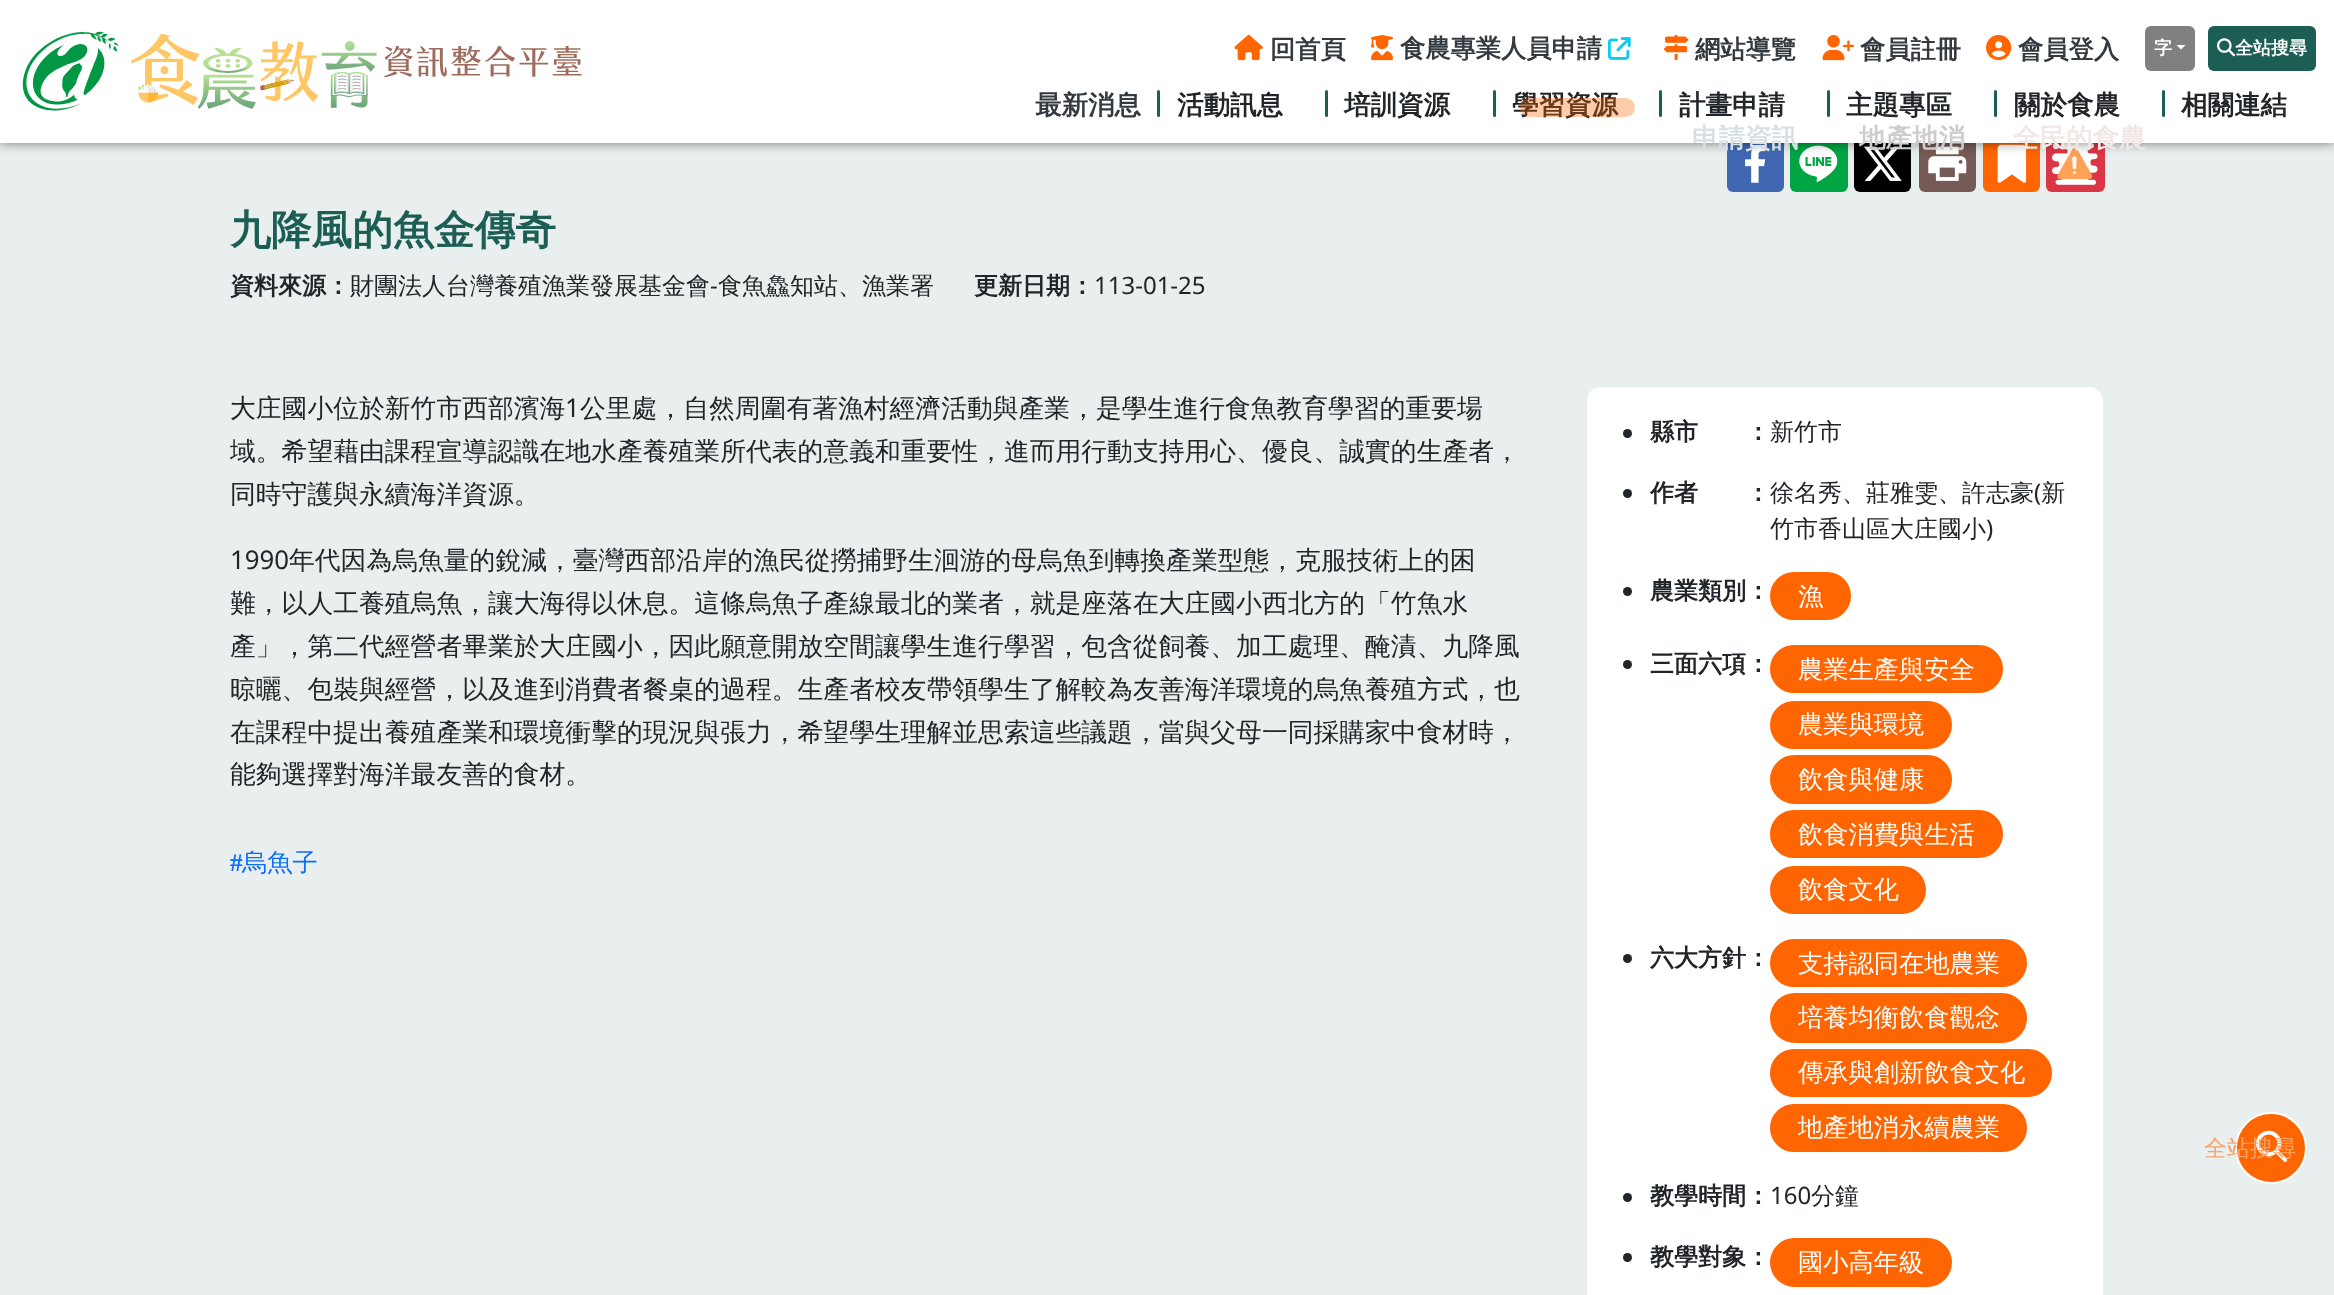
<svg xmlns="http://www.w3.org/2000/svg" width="2334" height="1295">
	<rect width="100%" height="100%" fill="#E8EFEE" />
	<rect x="1727" y="135" width="57" height="57" rx="6" fill="#4267B2" />
	<image x="1745" y="144" width="21" height="39" href="assets/img9.png" />
	<rect x="1790" y="135" width="58" height="57" rx="6" fill="#00A543" />
	<image x="1799" y="145" width="39" height="37" href="assets/img10.png" />
	<rect x="1854" y="135" width="57" height="57" rx="6" fill="#000000" />
	<image x="1863" y="146" width="39" height="35" href="assets/img11.png" />
	<rect x="1919" y="135" width="57" height="57" rx="6" fill="#755A55" />
	<image x="1928" y="146" width="39" height="35" href="assets/img12.png" />
	<rect x="1983" y="135" width="57" height="57" rx="6" fill="#FF6500" />
	<image x="1997" y="144" width="30" height="39" href="assets/img13.png" />
	<rect x="2046" y="135" width="59" height="57" rx="6" fill="#DC3545" />
	<image x="2052" y="143" width="46" height="42" href="assets/img14.png" />
	<rect x="0" y="0" width="2334" height="143" fill="#000000" fill-opacity="0.5" filter="blur(6px)" />
	<rect x="0" y="0" width="2334" height="143" fill="#FFFFFF" />
	<image x="22" y="31" width="560" height="80" href="assets/img1.png" />
	<image x="1234" y="35" width="29" height="26" href="assets/img2.png" />
	<text x="1270" y="58" font-family="WenQuanYi Zen Hei" font-size="25.25" font-weight="700" fill="#343A40">回首頁</text>
	<image x="1371" y="35" width="22" height="26" href="assets/img3.png" />
	<text x="1400" y="57" font-family="WenQuanYi Zen Hei" font-size="25.25" font-weight="700" fill="#343A40">食農專業人員申請</text>
	<image x="1608" y="37" width="23" height="23" href="assets/img4.png" />
	<image x="1663" y="35" width="26" height="26" href="assets/img5.png" />
	<text x="1695" y="58" font-family="WenQuanYi Zen Hei" font-size="25.25" font-weight="700" fill="#343A40">網站導覽</text>
	<image x="1822" y="35" width="32" height="26" href="assets/img6.png" />
	<text x="1860" y="58" font-family="WenQuanYi Zen Hei" font-size="25.25" font-weight="700" fill="#343A40">會員註冊</text>
	<image x="1986" y="34" width="26" height="27" href="assets/img7.png" />
	<text x="2018" y="58" font-family="WenQuanYi Zen Hei" font-size="25.25" font-weight="700" fill="#343A40">會員登入</text>
	<rect x="2145" y="26" width="50" height="45" rx="6" fill="#808080" />
	<text x="2154" y="54" font-family="WenQuanYi Zen Hei" font-size="18" font-weight="700" fill="#FFFFFF">字</text>
	<path d="M2176.5 45H2185.5L2181 49.5Z" fill="#FFFFFF" />
	<rect x="2208" y="26" width="108" height="45" rx="6" fill="#1D5E54" />
	<image x="2217" y="38" width="18" height="19" href="assets/img8.png" />
	<text x="2235" y="54" font-family="WenQuanYi Zen Hei" font-size="18" font-weight="700" fill="#FFFFFF">全站搜尋</text>
	<text x="1035" y="114" font-family="WenQuanYi Zen Hei" font-size="26.5" font-weight="700" fill="#343A40">最新消息</text>
	<rect x="1157" y="90" width="3" height="27" rx="1.5" fill="#1D5E54" />
	<text x="1177" y="114" font-family="WenQuanYi Zen Hei" font-size="26.5" font-weight="700" fill="#212529">活動訊息</text>
	<rect x="1325" y="90" width="3" height="27" rx="1.5" fill="#1D5E54" />
	<text x="1344" y="114" font-family="WenQuanYi Zen Hei" font-size="26.5" font-weight="700" fill="#212529">培訓資源</text>
	<rect x="1493" y="90" width="3" height="27" rx="1.5" fill="#1D5E54" />
	<text x="1512" y="114" font-family="WenQuanYi Zen Hei" font-size="26.5" font-weight="700" fill="#212529">學習資源</text>
	<rect x="1520" y="98" width="115" height="19" rx="9.5" fill="#FF6500" fill-opacity="0.33" />
	<rect x="1659" y="90" width="3" height="27" rx="1.5" fill="#1D5E54" />
	<text x="1679" y="114" font-family="WenQuanYi Zen Hei" font-size="26.5" font-weight="700" fill="#212529">計畫申請</text>
	<text x="1692" y="147" font-family="WenQuanYi Zen Hei" font-size="26.5" font-weight="700" fill="#D6DFE6">申請資訊</text>
	<rect x="1827" y="90" width="3" height="27" rx="1.5" fill="#1D5E54" />
	<text x="1846" y="114" font-family="WenQuanYi Zen Hei" font-size="26.5" font-weight="700" fill="#212529">主題專區</text>
	<text x="1859" y="147" font-family="WenQuanYi Zen Hei" font-size="26.5" font-weight="700" fill="#CECCCC">地產地消</text>
	<rect x="1994" y="90" width="3" height="27" rx="1.5" fill="#1D5E54" />
	<text x="2014" y="114" font-family="WenQuanYi Zen Hei" font-size="26.5" font-weight="700" fill="#212529">關於食農</text>
	<text x="2013" y="147" font-family="WenQuanYi Zen Hei" font-size="26.5" font-weight="700" fill="#F1E8E6">全民的食農</text>
	<rect x="2162" y="90" width="3" height="27" rx="1.5" fill="#1D5E54" />
	<text x="2181" y="114" font-family="WenQuanYi Zen Hei" font-size="26.5" font-weight="700" fill="#212529">相關連結</text>
	<text x="230" y="244" font-family="WenQuanYi Zen Hei" font-size="40.75" font-weight="700" fill="#1D5E54">九降風的魚金傳奇</text>
	<text x="230" y="294" font-family="WenQuanYi Zen Hei" font-size="24" font-weight="700" fill="#212529">資料來源：</text>
	<text x="350" y="294" font-family="WenQuanYi Zen Hei" font-size="24" font-weight="500" fill="#212529">財團法人台灣養殖漁業發展基金會</text>
	<text x="710" y="294" font-family="Noto Sans" font-size="24" fill="#212529">-</text>
	<text x="718" y="294" font-family="WenQuanYi Zen Hei" font-size="24" font-weight="500" fill="#212529">食魚鱻知站、漁業署</text>
	<text x="974" y="294" font-family="WenQuanYi Zen Hei" font-size="24" font-weight="700" fill="#212529">更新日期：</text>
	<text x="1094" y="294" font-family="Noto Sans" font-size="24" fill="#212529">113-01-25</text>
	<text x="230" y="417" font-family="WenQuanYi Zen Hei" font-size="25.8" font-weight="500" fill="#212529">大庄國小位於新竹市西部濱海</text>
	<text x="565" y="417" font-family="Noto Sans" font-size="25.8" fill="#212529">1</text>
	<g font-family="WenQuanYi Zen Hei" font-size="25.8" font-weight="500" fill="#212529">
		<text x="580" y="417">公里處，自然周圍有著漁村經濟活動與產業，是學生進行食魚教育學習的重要場</text>
		<text x="230" y="460">域。希望藉由課程宣導認識在地水產養殖業所代表的意義和重要性，進而用行動支持用心、優良、誠實的生產者，</text>
		<text x="230" y="503">同時守護與永續海洋資源。</text>
	</g>
	<text x="230" y="569" font-family="Noto Sans" font-size="25.8" fill="#212529">1990</text>
	<g font-family="WenQuanYi Zen Hei" font-size="25.8" font-weight="500" fill="#212529">
		<text x="289" y="569">年代因為烏魚量的銳減，臺灣西部沿岸的漁民從撈捕野生洄游的母烏魚到轉換產業型態，克服技術上的困</text>
		<text x="230" y="612">難，以人工養殖烏魚，讓大海得以休息。這條烏魚子產線最北的業者，就是座落在大庄國小西北方的「竹魚水</text>
		<text x="230" y="655">產」，第二代經營者畢業於大庄國小，因此願意開放空間讓學生進行學習，包含從飼養、加工處理、醃漬、九降風</text>
		<text x="230" y="698">晾曬、包裝與經營，以及進到消費者餐桌的過程。生產者校友帶領學生了解較為友善海洋環境的烏魚養殖方式，也</text>
		<text x="230" y="741">在課程中提出養殖產業和環境衝擊的現況與張力，希望學生理解並思索這些議題，當與父母一同採購家中食材時，</text>
		<text x="230" y="783">能夠選擇對海洋最友善的食材。</text>
	</g>
	<text x="230" y="871" font-family="Liberation Serif" font-size="25.25" font-weight="700" fill="#0D6EFD">#</text>
	<text x="242" y="871" font-family="WenQuanYi Zen Hei" font-size="25.25" font-weight="500" fill="#0D6EFD">烏魚子</text>
	<rect x="1587" y="387" width="516" height="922" rx="14" fill="#FFFFFF" />
	<circle cx="1627.5" cy="433.5" r="4.5" fill="#212529" />
	<g font-family="WenQuanYi Zen Hei" font-size="24" font-weight="700" fill="#212529">
		<text x="1650" y="440">縣市</text>
		<text x="1746" y="440">：</text>
	</g>
	<text x="1770" y="440" font-family="WenQuanYi Zen Hei" font-size="24" font-weight="500" fill="#212529">新竹市</text>
	<circle cx="1627.5" cy="493.5" r="4.5" fill="#212529" />
	<g font-family="WenQuanYi Zen Hei" font-size="24" font-weight="700" fill="#212529">
		<text x="1650" y="501">作者</text>
		<text x="1746" y="501">：</text>
	</g>
	<text x="1770" y="501" font-family="WenQuanYi Zen Hei" font-size="24" font-weight="500" fill="#212529">徐名秀、莊雅雯、許志豪 新</text>
	<text x="2034" y="501" font-family="Noto Sans" font-size="24" fill="#212529">(</text>
	<text x="1770" y="537" font-family="WenQuanYi Zen Hei" font-size="24" font-weight="500" fill="#212529">竹市香山區大庄國小</text>
	<text x="1986" y="537" font-family="Noto Sans" font-size="24" fill="#212529">)</text>
	<circle cx="1627.5" cy="591.5" r="4.5" fill="#212529" />
	<g font-family="WenQuanYi Zen Hei" font-size="24" font-weight="700" fill="#212529">
		<text x="1650" y="599">農業類別</text>
		<text x="1746" y="599">：</text>
	</g>
	<rect x="1771" y="573" width="79" height="46" rx="23" fill="#FF6500" stroke="#FF6500" stroke-width="2" />
	<text x="1798" y="605" font-family="WenQuanYi Zen Hei" font-size="25.25" font-weight="500" fill="#FFFFFF">漁</text>
	<circle cx="1627.5" cy="664.5" r="4.5" fill="#212529" />
	<g font-family="WenQuanYi Zen Hei" font-size="24" font-weight="700" fill="#212529">
		<text x="1650" y="672">三面六項</text>
		<text x="1746" y="672">：</text>
	</g>
	<rect x="1771" y="646" width="231" height="46" rx="23" fill="#FF6500" stroke="#FF6500" stroke-width="2" />
	<text x="1798" y="678" font-family="WenQuanYi Zen Hei" font-size="25.25" font-weight="500" fill="#FFFFFF">農業生產與安全</text>
	<rect x="1771" y="702" width="180" height="46" rx="23" fill="#FF6500" stroke="#FF6500" stroke-width="2" />
	<text x="1798" y="733" font-family="WenQuanYi Zen Hei" font-size="25.25" font-weight="500" fill="#FFFFFF">農業與環境</text>
	<rect x="1771" y="756" width="180" height="47" rx="23.5" fill="#FF6500" stroke="#FF6500" stroke-width="2" />
	<text x="1798" y="788" font-family="WenQuanYi Zen Hei" font-size="25.25" font-weight="500" fill="#FFFFFF">飲食與健康</text>
	<rect x="1771" y="811" width="231" height="46" rx="23" fill="#FF6500" stroke="#FF6500" stroke-width="2" />
	<text x="1798" y="843" font-family="WenQuanYi Zen Hei" font-size="25.25" font-weight="500" fill="#FFFFFF">飲食消費與生活</text>
	<rect x="1771" y="867" width="154" height="46" rx="23" fill="#FF6500" stroke="#FF6500" stroke-width="2" />
	<text x="1798" y="898" font-family="WenQuanYi Zen Hei" font-size="25.25" font-weight="500" fill="#FFFFFF">飲食文化</text>
	<circle cx="1627.5" cy="958.5" r="4.5" fill="#212529" />
	<g font-family="WenQuanYi Zen Hei" font-size="24" font-weight="700" fill="#212529">
		<text x="1650" y="966">六大方針</text>
		<text x="1746" y="966">：</text>
	</g>
	<rect x="1771" y="940" width="255" height="46" rx="23" fill="#FF6500" stroke="#FF6500" stroke-width="2" />
	<text x="1798" y="972" font-family="WenQuanYi Zen Hei" font-size="25.25" font-weight="500" fill="#FFFFFF">支持認同在地農業</text>
	<rect x="1771" y="994" width="255" height="48" rx="24" fill="#FF6500" stroke="#FF6500" stroke-width="2" />
	<text x="1798" y="1026" font-family="WenQuanYi Zen Hei" font-size="25.25" font-weight="500" fill="#FFFFFF">培養均衡飲食觀念</text>
	<rect x="1771" y="1050" width="280" height="46" rx="23" fill="#FF6500" stroke="#FF6500" stroke-width="2" />
	<text x="1798" y="1081" font-family="WenQuanYi Zen Hei" font-size="25.25" font-weight="500" fill="#FFFFFF">傳承與創新飲食文化</text>
	<rect x="1771" y="1105" width="255" height="46" rx="23" fill="#FF6500" stroke="#FF6500" stroke-width="2" />
	<text x="1798" y="1136" font-family="WenQuanYi Zen Hei" font-size="25.25" font-weight="500" fill="#FFFFFF">地產地消永續農業</text>
	<circle cx="1627.5" cy="1197.5" r="4.5" fill="#212529" />
	<g font-family="WenQuanYi Zen Hei" font-size="24" font-weight="700" fill="#212529">
		<text x="1650" y="1204">教學時間</text>
		<text x="1746" y="1204">：</text>
	</g>
	<text x="1770" y="1204" font-family="Noto Sans" font-size="24" fill="#212529">160</text>
	<text x="1811" y="1204" font-family="WenQuanYi Zen Hei" font-size="24" font-weight="500" fill="#212529">分鐘</text>
	<circle cx="1627.5" cy="1257.5" r="4.5" fill="#212529" />
	<g font-family="WenQuanYi Zen Hei" font-size="24" font-weight="700" fill="#212529">
		<text x="1650" y="1265">教學對象</text>
		<text x="1746" y="1265">：</text>
	</g>
	<rect x="1771" y="1239" width="180" height="47" rx="23.5" fill="#FF6500" stroke="#FF6500" stroke-width="2" />
	<text x="1798" y="1271" font-family="WenQuanYi Zen Hei" font-size="25.25" font-weight="500" fill="#FFFFFF">國小高年級</text>
	<circle cx="2271" cy="1148" r="35" fill="#FF6500" stroke="#FFFFFF" stroke-width="2" />
	<image x="2256" y="1130" width="32" height="32" href="assets/img15.png" />
	<text x="2204" y="1156" font-family="WenQuanYi Zen Hei" font-size="23" font-weight="500" fill="#F8A46B">全站搜尋</text>
</svg>
